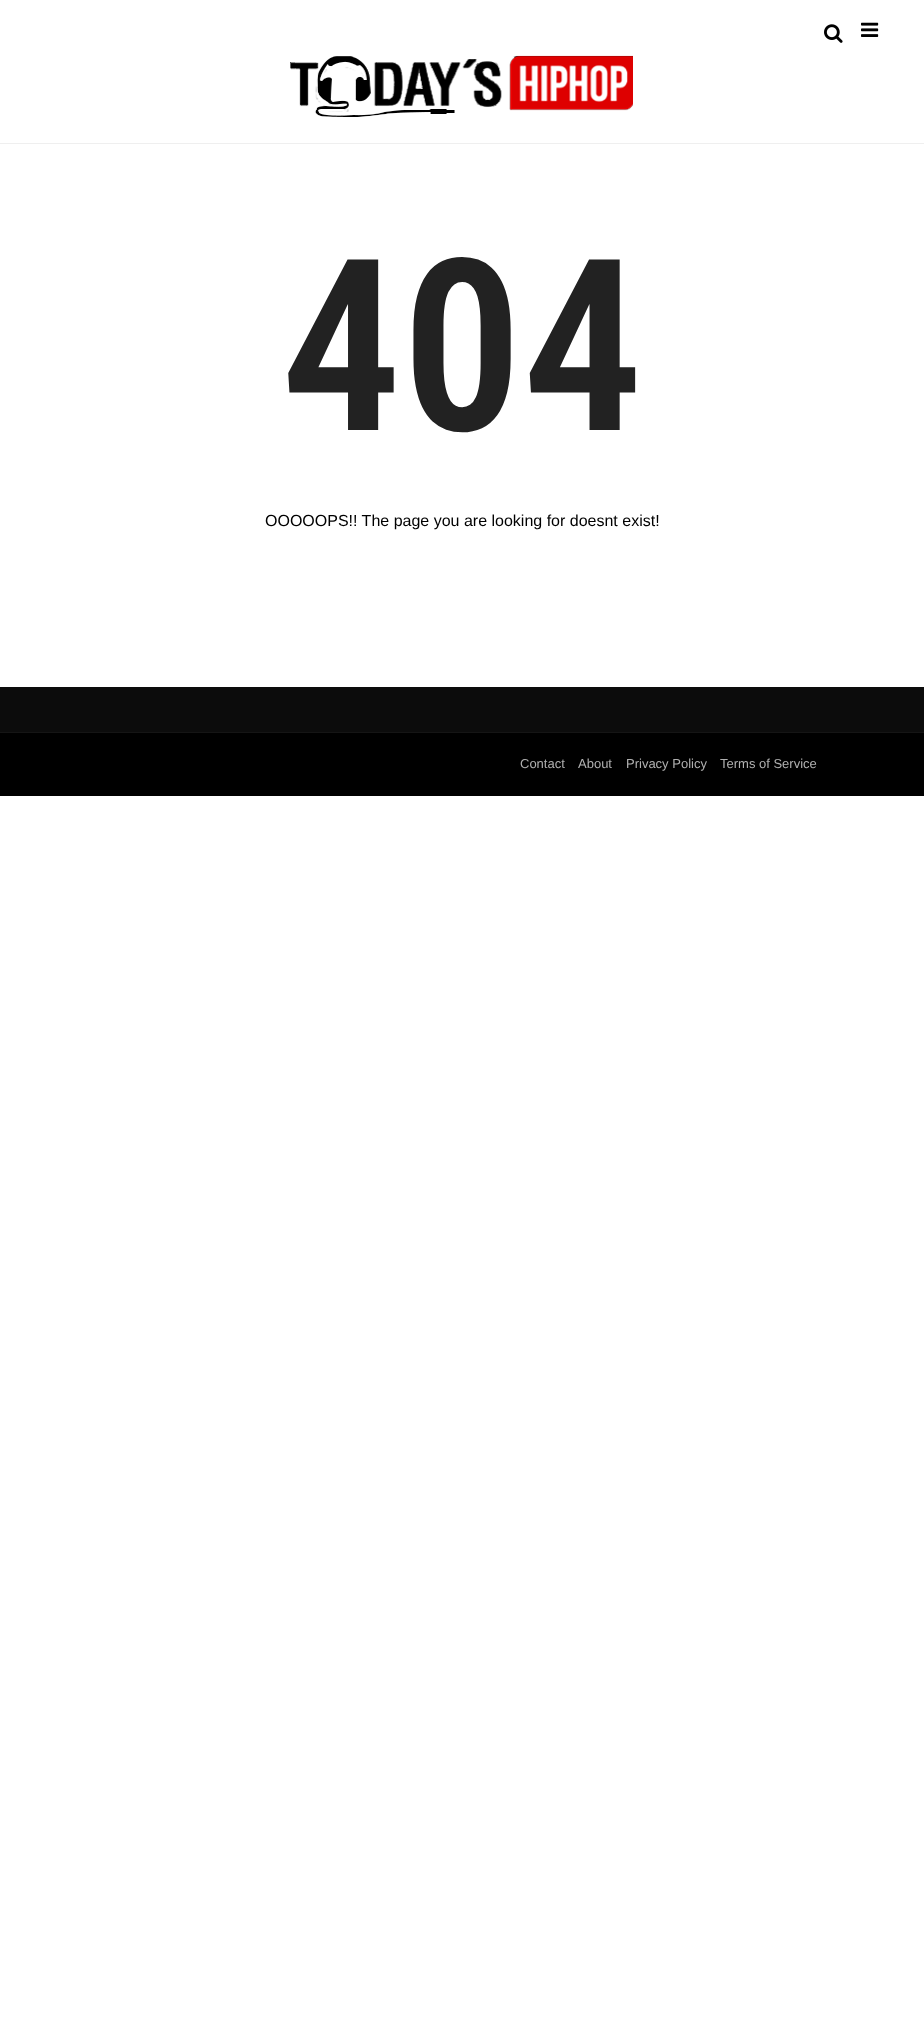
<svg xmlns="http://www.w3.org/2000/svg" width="924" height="2041">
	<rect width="100%" height="100%" fill="#FFFFFF" />
	<image x="824" y="24" width="19" height="19" href="assets/img1.png" />
	<image x="861" y="22" width="18" height="15" href="assets/img2.png" />
	<rect x="0" y="143" width="924" height="1" fill="#EFEFEF" />
	<image x="290" y="55" width="343" height="62" href="assets/img3.png" />
	<text x="281" y="430" font-family="Roboto Condensed" font-size="240" font-weight="600" fill="#222222">404</text>
	<text x="265" y="526" font-family="Liberation Sans" font-size="16" fill="#000000">OOOOOPS!! The page you are looking for doesnt exist!</text>
	<rect x="0" y="687" width="924" height="45" fill="#0C0C0C" />
	<rect x="0" y="733" width="924" height="63" fill="#000000" />
	<rect x="0" y="732" width="924" height="1" fill="#151515" />
	<g font-family="Liberation Sans" font-size="13" fill="#B0B0B0">
		<text x="520" y="768">Contact</text>
		<text x="578" y="768">About</text>
		<text x="626" y="768">Privacy Policy</text>
		<text x="720" y="768">Terms of Service</text>
	</g>
</svg>
